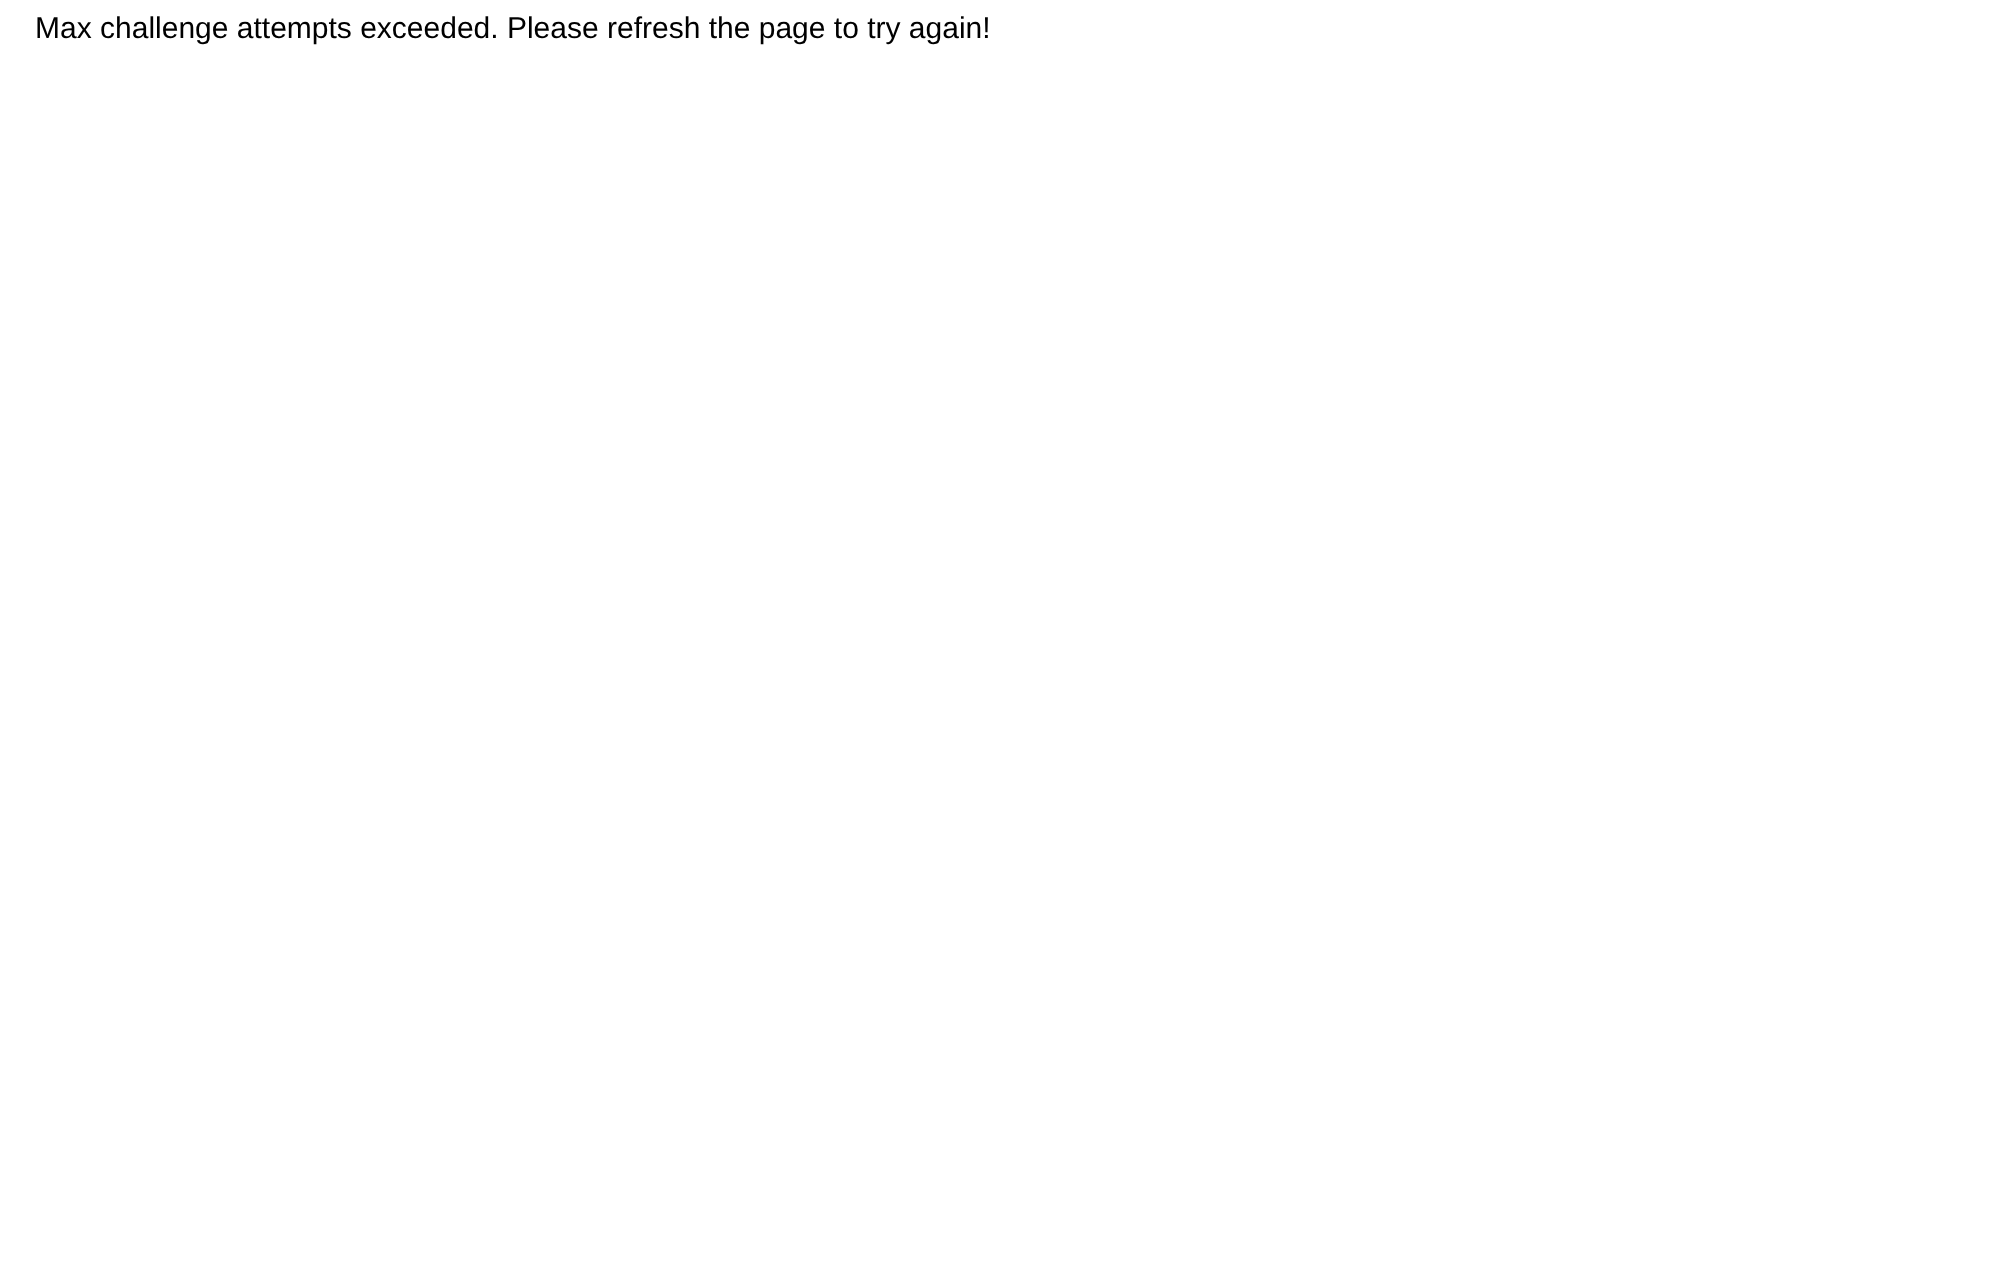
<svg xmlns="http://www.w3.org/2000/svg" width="2003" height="1283">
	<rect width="100%" height="100%" fill="#FFFFFF" />
	<text x="35" y="38" font-family="Liberation Sans" font-size="30" fill="#000000">Max challenge attempts exceeded. Please refresh the page to try again!</text>
</svg>
